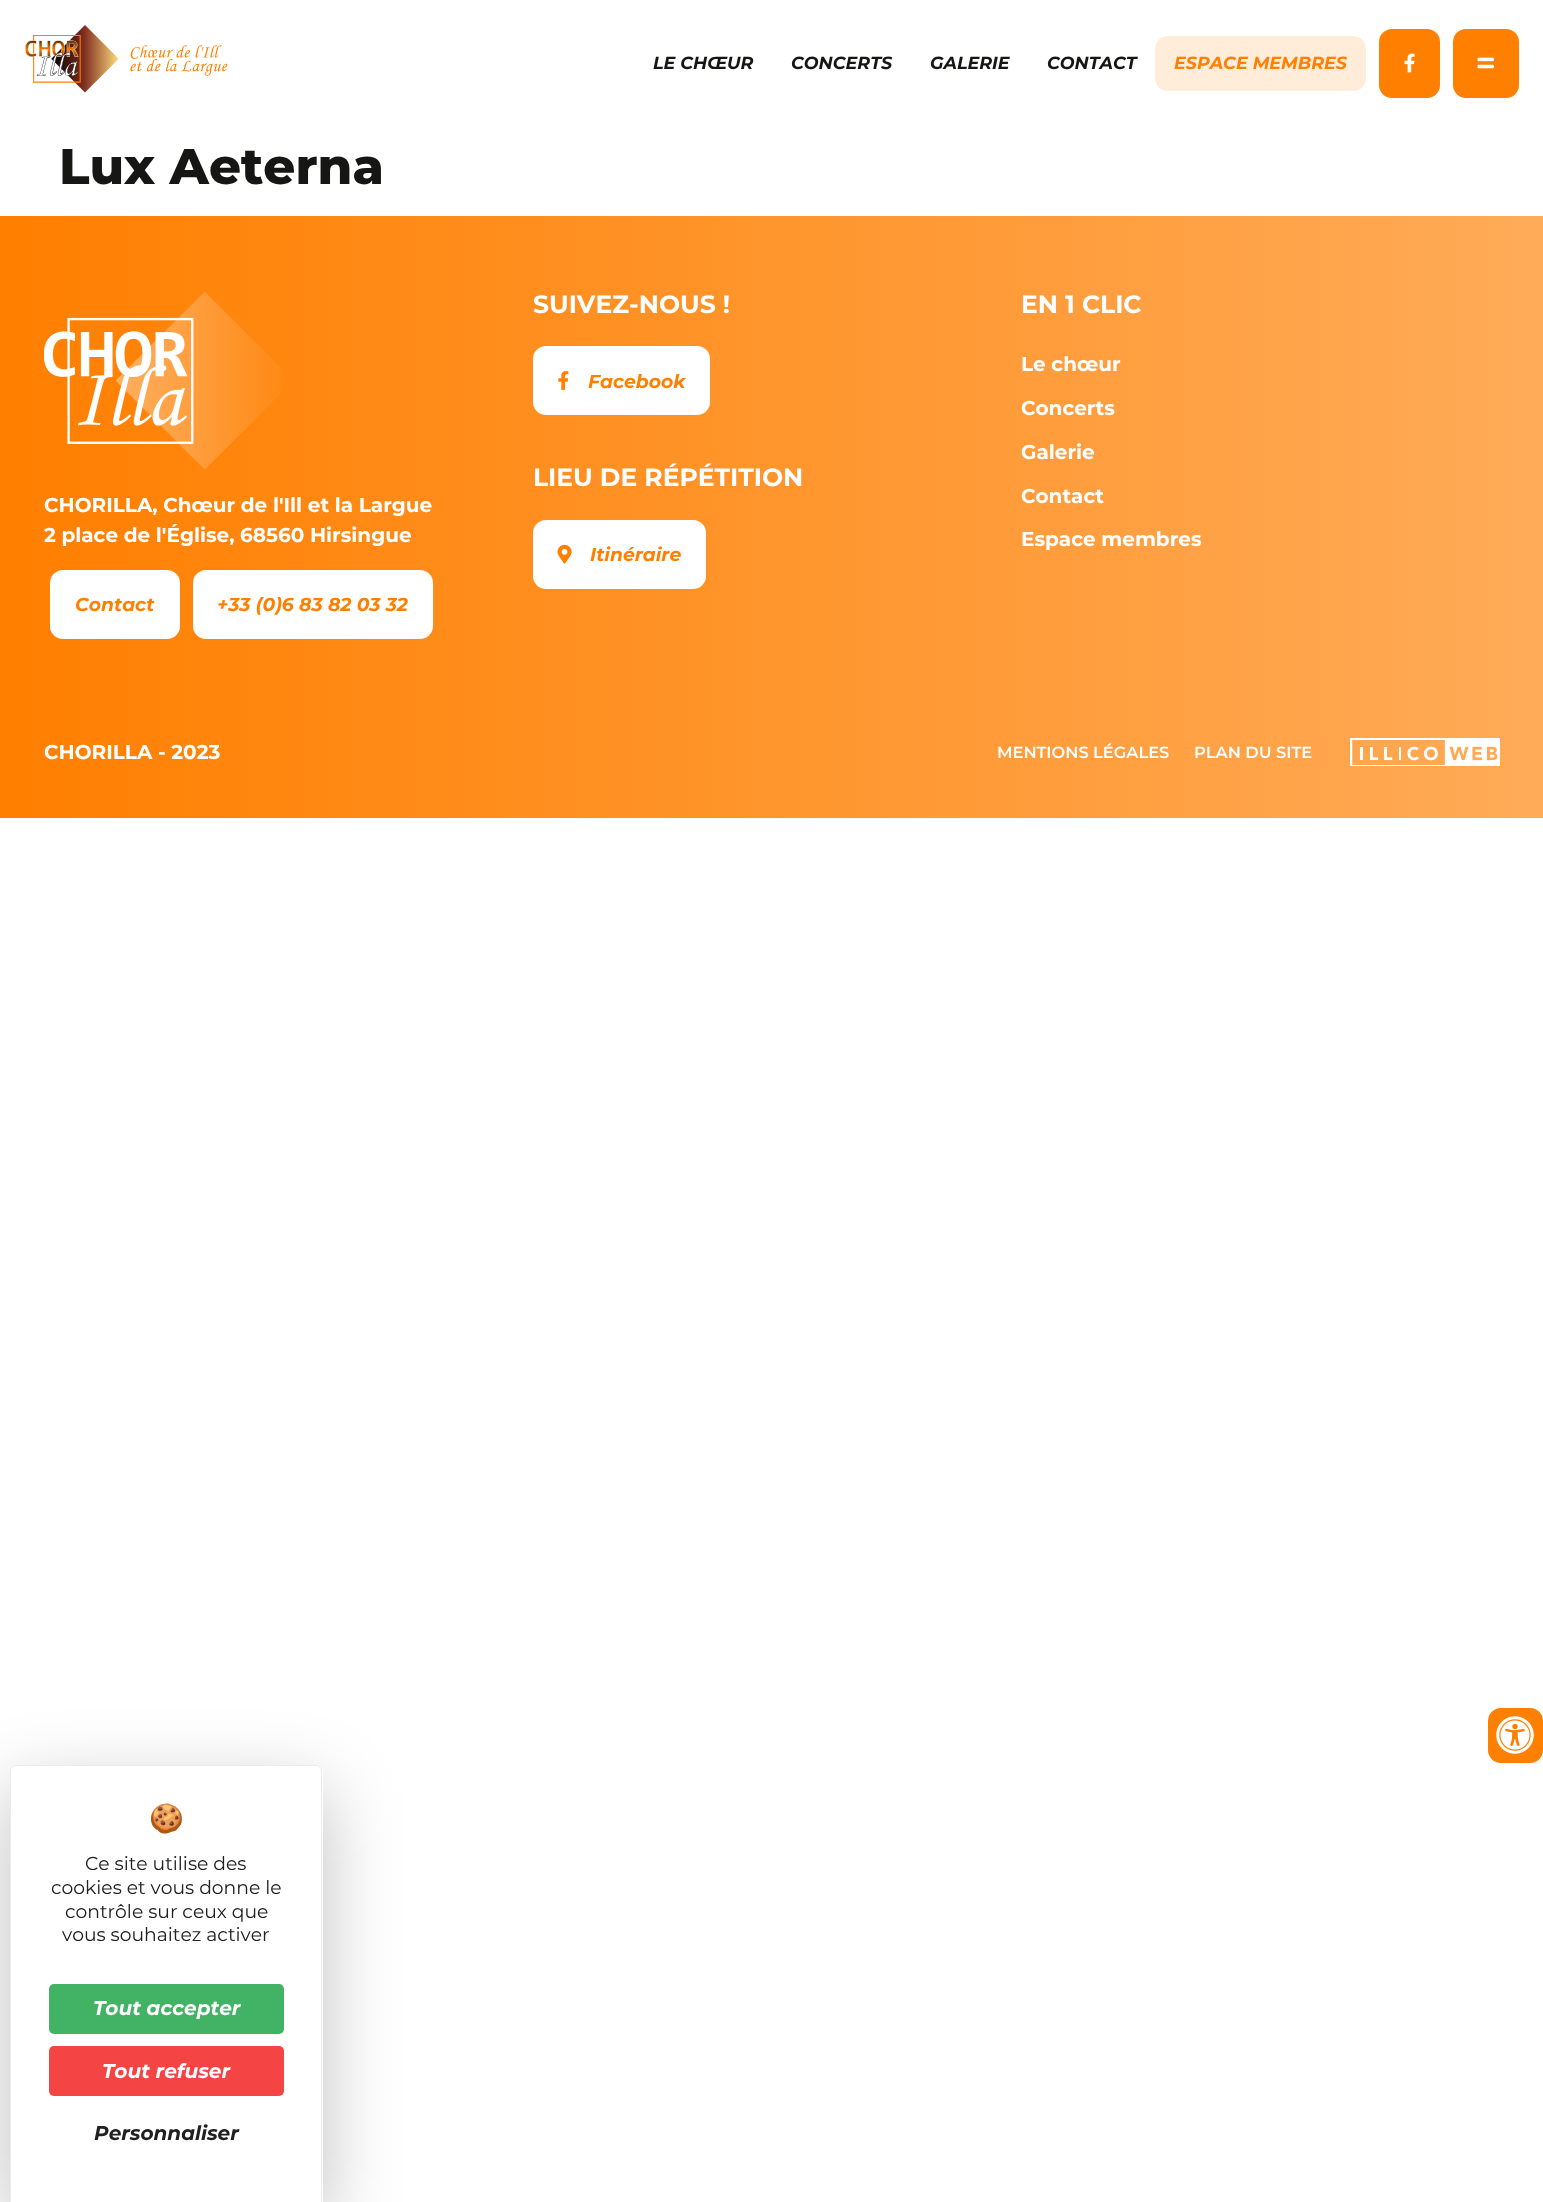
<svg xmlns="http://www.w3.org/2000/svg" width="1543" height="2202">
	<style>*{font-kerning:none!important;font-variant-ligatures:none!important}</style>
	<defs>
		<linearGradient id="g1" gradientUnits="userSpaceOnUse" x1="0" y1="453" x2="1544" y2="452"><stop offset="0" stop-color="#FF7F00" /><stop offset="1" stop-color="#FFAB58" /></linearGradient>
		<linearGradient id="g2" gradientUnits="userSpaceOnUse" x1="0" y1="753" x2="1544" y2="753"><stop offset="0" stop-color="#FF7F00" /><stop offset="1" stop-color="#FFAB58" /></linearGradient>
	</defs>
	<rect width="100%" height="100%" fill="#FFFFFF" />
	<image x="25" y="25" width="203" height="68" href="assets/img1.png" />
	<g font-family="Montserrat" font-size="17.5" font-weight="700" font-style="italic" fill="#161615">
		<text x="653" y="69">LE CHŒUR</text>
		<text x="791" y="69">CONCERTS</text>
		<text x="930" y="69">GALERIE</text>
		<text x="1047" y="69">CONTACT</text>
	</g>
	<rect x="1155" y="36" width="211" height="55" rx="13" fill="#FFECD9" />
	<text x="1174" y="69" font-family="Montserrat" font-size="17.5" font-weight="700" font-style="italic" fill="#FF7F00">ESPACE MEMBRES</text>
	<rect x="1379" y="29" width="61" height="69" rx="13" fill="#FF7F00" />
	<image x="1404" y="53" width="11" height="20" href="assets/img2.png" />
	<rect x="1453" y="29" width="66" height="69" rx="13" fill="#FF7F00" />
	<image x="1477" y="57" width="17" height="12" href="assets/img3.png" />
	<text x="59" y="184" font-family="Montserrat" font-size="50" font-weight="800" fill="#161615">Lux Aeterna</text>
	<rect x="0" y="216" width="1543" height="473" fill="url(#g1)" />
	<image x="44" y="291" width="240" height="179" href="assets/img4.png" />
	<g font-family="Montserrat" font-size="20" font-weight="700" fill="#FFFFFF">
		<text x="44" y="512">CHORILLA, Chœur de l'Ill et la Largue</text>
		<text x="44" y="542">2 place de l'Église, 68560 Hirsingue</text>
	</g>
	<rect x="50" y="570" width="130" height="69" rx="13" fill="#FFFFFF" />
	<text x="75" y="611" font-family="Montserrat" font-size="18.75" font-weight="700" font-style="italic" fill="#FF7F00">Contact</text>
	<rect x="193" y="570" width="240" height="69" rx="13" fill="#FFFFFF" />
	<text x="217" y="611" font-family="Montserrat" font-size="18.75" font-weight="700" font-style="italic" fill="#FF7F00">+33 (0)6 83 82 03 32</text>
	<text x="533" y="313" font-family="Montserrat" font-size="25" font-weight="700" fill="#FFFFFF">SUIVEZ-NOUS !</text>
	<rect x="533" y="346" width="177" height="69" rx="13" fill="#FFFFFF" />
	<image x="558" y="371" width="11" height="19" href="assets/img5.png" />
	<text x="588" y="388" font-family="Montserrat" font-size="18.75" font-weight="700" font-style="italic" fill="#FF7F00">Facebook</text>
	<text x="533" y="486" font-family="Montserrat" font-size="25" font-weight="700" fill="#FFFFFF">LIEU DE RÉPÉTITION</text>
	<rect x="533" y="520" width="173" height="69" rx="13" fill="#FFFFFF" />
	<image x="557" y="544" width="15" height="20" href="assets/img6.png" />
	<text x="590" y="561" font-family="Montserrat" font-size="18.75" font-weight="700" font-style="italic" fill="#FF7F00">Itinéraire</text>
	<text x="1021" y="313" font-family="Montserrat" font-size="25" font-weight="700" fill="#FFFFFF">EN 1 CLIC</text>
	<g font-family="Montserrat" font-size="20" font-weight="700" fill="#FFFFFF">
		<text x="1021" y="371">Le chœur</text>
		<text x="1021" y="415">Concerts</text>
		<text x="1021" y="459">Galerie</text>
		<text x="1021" y="503">Contact</text>
		<text x="1021" y="546">Espace membres</text>
	</g>
	<rect x="0" y="689" width="1543" height="129" fill="url(#g2)" />
	<text x="44" y="759" font-family="Montserrat" font-size="20" font-weight="700" fill="#FFFFFF">CHORILLA - 2023</text>
	<g font-family="Montserrat" font-size="16.25" font-weight="600" fill="#FFFFFF">
		<text x="997" y="758">MENTIONS LÉGALES</text>
		<text x="1194" y="758">PLAN DU SITE</text>
	</g>
	<image x="1350" y="738" width="150" height="28" href="assets/img7.png" />
	<rect x="1488" y="1708" width="55" height="55" rx="13" fill="#FF7F00" />
	<image x="1496" y="1716" width="38" height="38" href="assets/img8.png" />
	<rect x="10" y="1790" width="313" height="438" rx="6" fill="#000000" fill-opacity="0.25" filter="blur(37.5px)" />
	<path d="M16 1765H317C320.5 1765 323 1767.5 323 1771V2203H10V1771C10 1767.5 12.5 1765 16 1765Z" fill="#FFFFFF" />
	<path d="M16 1765H316C320 1765 322 1768 322 1771V2202H10V1771C10 1768 13 1765 16 1765ZM16 1766H316C319 1766 321 1768 321 1771V2202H11V1771C11 1768 13 1766 16 1766Z" fill="#EBEBEB" fill-rule="evenodd" />
	<text x="149" y="1828" font-family="Noto Color Emoji" font-size="28" fill="#202020">🍪</text>
	<g font-family="Montserrat" font-size="18.75" fill="#202020">
		<text x="85" y="1870">Ce site utilise des</text>
		<text x="51" y="1894">cookies et vous donne le</text>
		<text x="65" y="1918">contrôle sur ceux que</text>
		<text x="62" y="1941">vous souhaitez activer</text>
	</g>
	<rect x="49" y="1984" width="235" height="50" rx="5" fill="#42B364" />
	<text x="93" y="2015" font-family="Montserrat" font-size="20" font-weight="700" font-style="italic" fill="#FFFFFF">Tout accepter</text>
	<rect x="49" y="2046" width="235" height="50" rx="5" fill="#F54444" />
	<text x="102" y="2078" font-family="Montserrat" font-size="20" font-weight="700" font-style="italic" fill="#FFFFFF">Tout refuser</text>
	<text x="94" y="2140" font-family="Montserrat" font-size="20" font-weight="700" font-style="italic" fill="#202020">Personnaliser</text>
</svg>
